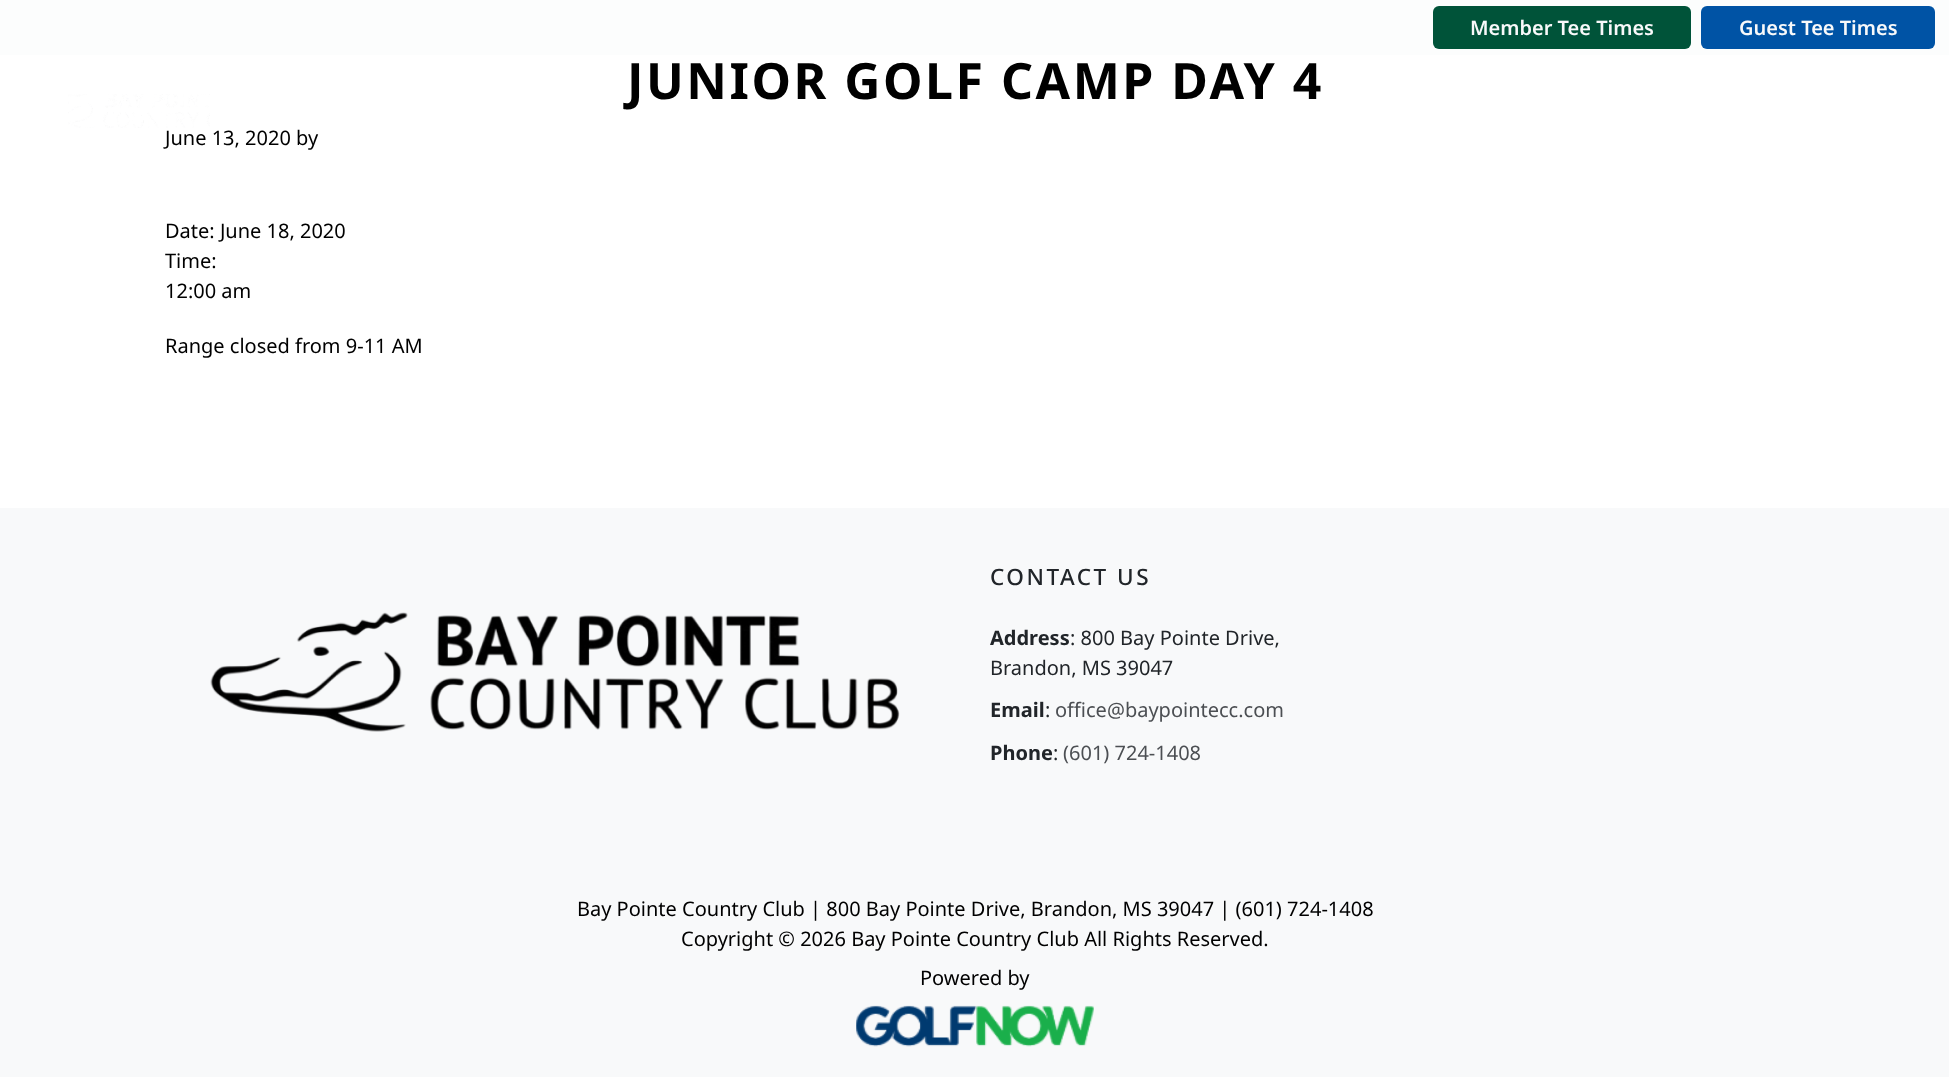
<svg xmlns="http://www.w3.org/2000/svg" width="1949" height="1077">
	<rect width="100%" height="100%" fill="#FFFFFF" />
	<rect x="0" y="0" width="1949" height="55" fill="#FCFDFD" />
	<rect x="1433" y="6" width="258" height="43" rx="6" fill="#005339" />
	<text x="1470" y="35" font-family="Noto Sans" font-size="20" font-weight="600" fill="#F8F9FA">Member Tee Times</text>
	<rect x="1701" y="6" width="234" height="43" rx="6" fill="#0053A5" />
	<text x="1739" y="35" font-family="Noto Sans" font-size="20" font-weight="600" fill="#F8F9FA">Guest Tee Times</text>
	<image x="68" y="94" width="142" height="34" href="assets/img1.png" />
	<text x="627" y="99" font-family="Noto Sans" font-size="50" font-weight="700" letter-spacing="2.5" fill="#000000">JUNIOR GOLF CAMP DAY 4</text>
	<g font-family="Noto Sans" font-size="20" fill="#000000">
		<text x="165" y="145">June 13, 2020 by</text>
		<text x="165" y="238">Date: June 18, 2020</text>
		<text x="165" y="268">Time:</text>
		<text x="165" y="298">12:00 am</text>
		<text x="165" y="353">Range closed from 9-11 AM</text>
	</g>
	<rect x="0" y="508" width="1949" height="569" fill="#F8F9FA" />
	<image x="210" y="612" width="690" height="120" href="assets/img2.png" />
	<text x="990" y="585" font-family="Noto Sans" font-size="22.5" font-weight="500" letter-spacing="2.5" fill="#212529">CONTACT US</text>
	<text x="990" y="645" font-family="Noto Sans" font-size="20" font-weight="700" fill="#212529">Address</text>
	<g font-family="Noto Sans" font-size="20" fill="#212529">
		<text x="1070" y="645">: 800 Bay Pointe Drive,</text>
		<text x="990" y="675">Brandon, MS 39047</text>
	</g>
	<text x="990" y="717" font-family="Noto Sans" font-size="20" font-weight="700" fill="#212529">Email</text>
	<text x="1045" y="717" font-family="Noto Sans" font-size="20" fill="#212529">:</text>
	<text x="1055" y="717" font-family="Noto Sans" font-size="20" fill="#4C4F53">office@baypointecc.com</text>
	<text x="990" y="760" font-family="Noto Sans" font-size="20" font-weight="700" fill="#212529">Phone</text>
	<text x="1053" y="760" font-family="Noto Sans" font-size="20" fill="#212529">:</text>
	<text x="1063" y="760" font-family="Noto Sans" font-size="20" fill="#4C4F53">(601) 724-1408</text>
	<g font-family="Noto Sans" font-size="20" fill="#000000">
		<text x="577" y="916">Bay Pointe Country Club | 800 Bay Pointe Drive, Brandon, MS 39047 | (601) 724-1408</text>
		<text x="681" y="946">Copyright © 2026 Bay Pointe Country Club All Rights Reserved.</text>
		<text x="920" y="985">Powered by</text>
	</g>
	<image x="856" y="1005" width="238" height="42" href="assets/img3.png" />
</svg>
